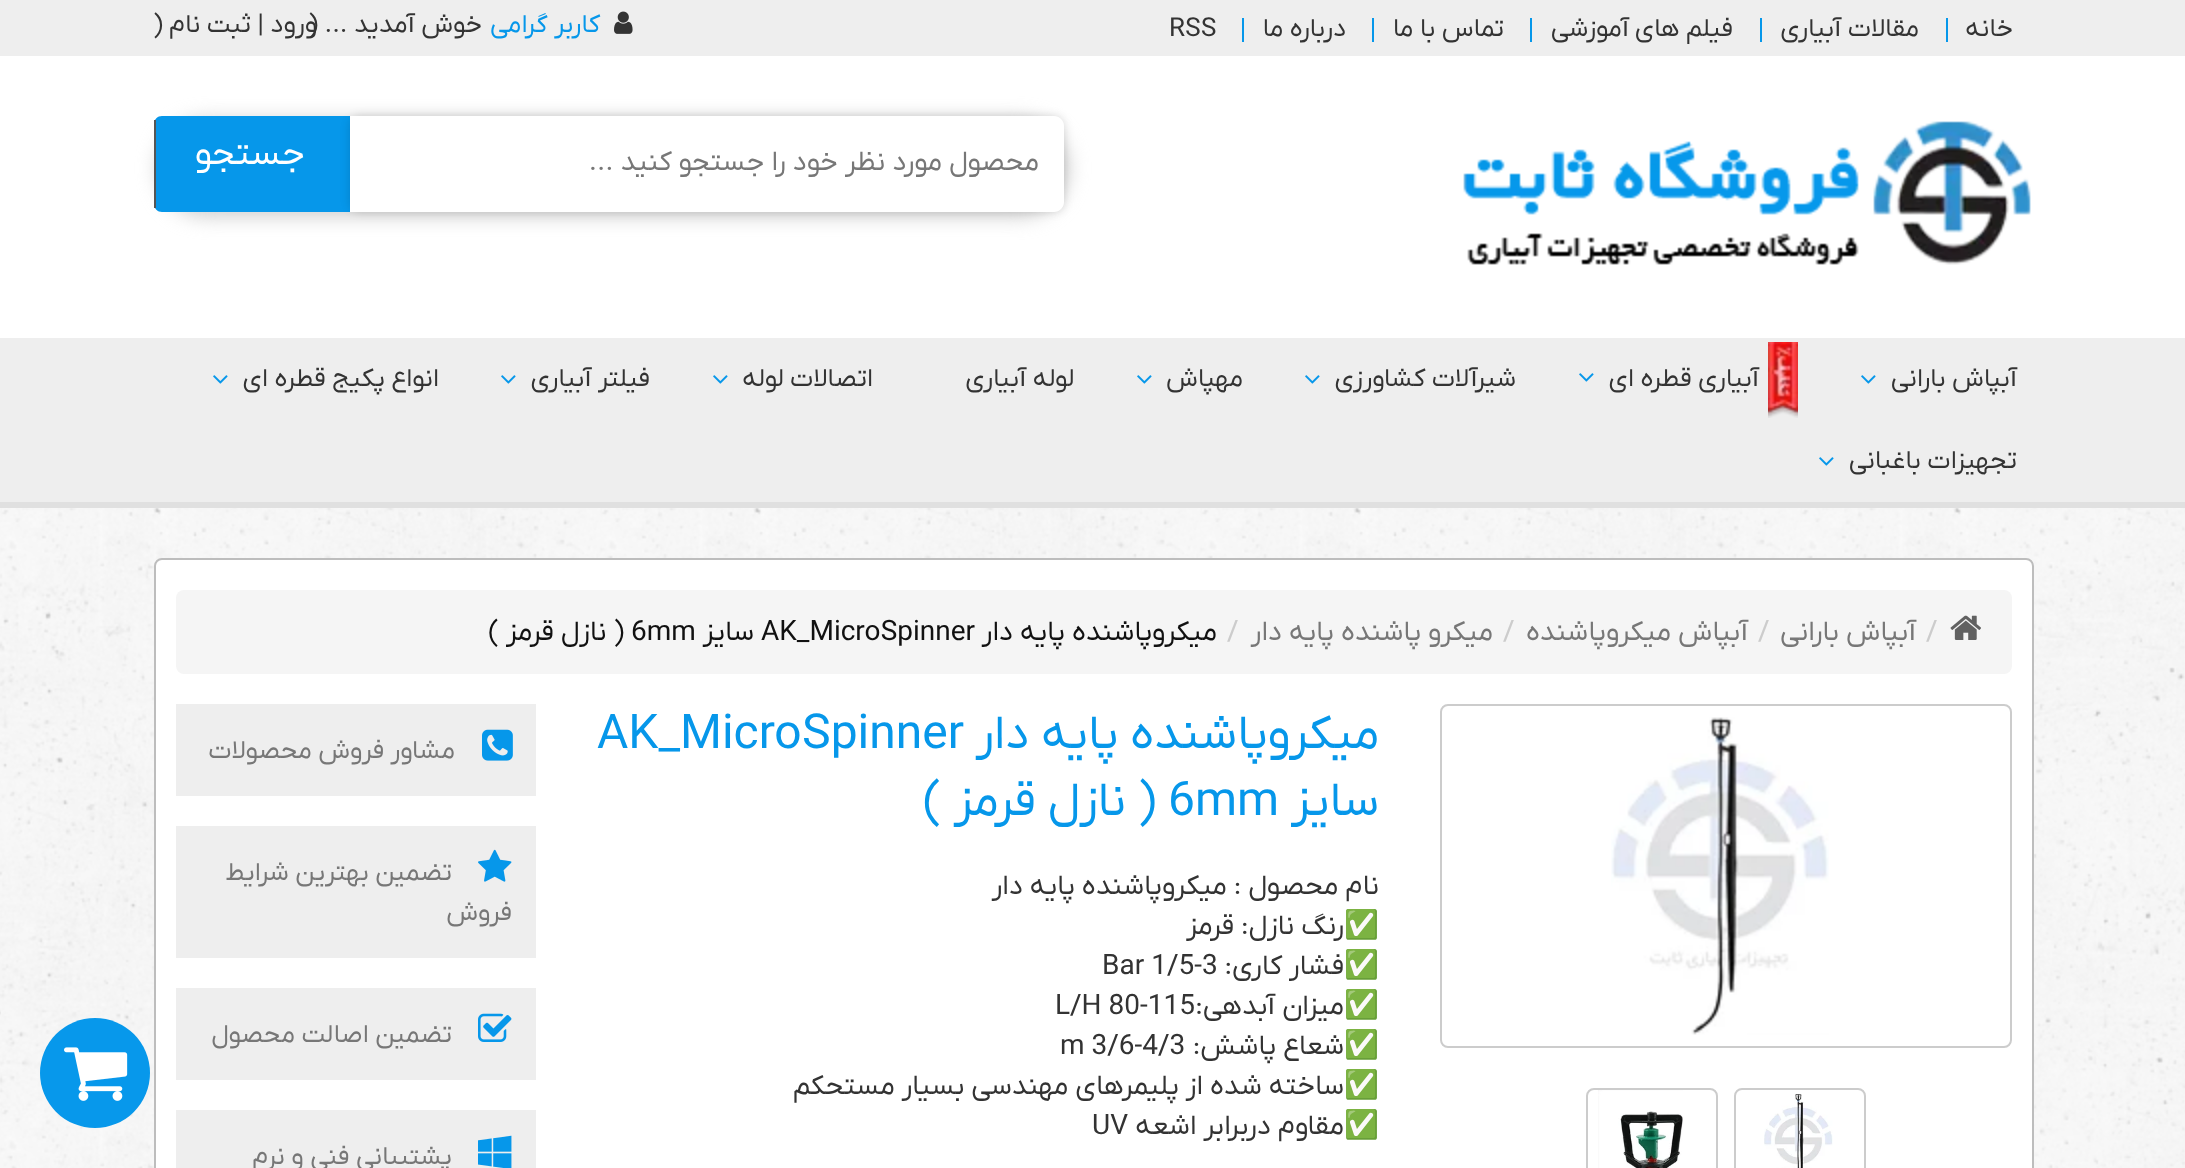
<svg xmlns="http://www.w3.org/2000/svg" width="2185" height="1168">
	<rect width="100%" height="100%" fill="#FFFFFF" />
	<image x="0" y="508" width="2185" height="660" href="assets/img1.png" />
	<rect x="0" y="0" width="2185" height="56" fill="#EEEEEE" />
	<text x="2013" y="36" font-family="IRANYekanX" font-size="26" direction="rtl" fill="#333333">خانه</text>
	<rect x="1946" y="18" width="2" height="24" fill="#0697EA" />
	<text x="1919" y="36" font-family="IRANYekanX" font-size="26" direction="rtl" fill="#333333">مقالات آبیاری</text>
	<rect x="1760" y="18" width="2" height="24" fill="#0697EA" />
	<g font-family="IRANYekanX" font-size="26" direction="rtl" fill="#333333">
		<text x="1733" y="36">فیلم های</text>
		<text x="1629" y="36">آموزشی</text>
	</g>
	<rect x="1530" y="18" width="2" height="24" fill="#0697EA" />
	<text x="1504" y="36" font-family="IRANYekanX" font-size="26" direction="rtl" fill="#333333">تماس با ما</text>
	<rect x="1372" y="18" width="2" height="24" fill="#0697EA" />
	<text x="1346" y="36" font-family="IRANYekanX" font-size="26" direction="rtl" fill="#333333">درباره ما</text>
	<rect x="1242" y="18" width="2" height="24" fill="#0697EA" />
	<text x="1169" y="36" font-family="IRANYekanX" font-size="26" fill="#333333">RSS</text>
	<image x="614" y="11" width="19" height="23" href="assets/img2.png" />
	<text x="600" y="32" font-family="IRANYekanX" font-size="26" direction="rtl" fill="#0697EA">کاربر گرامی</text>
	<g font-family="IRANYekanX" font-size="26" direction="rtl" fill="#333333">
		<text x="482" y="32">خوش آمدید ... (</text>
		<text x="317" y="32">ورود | ثبت نام</text>
	</g>
	<text x="153" y="32" font-family="IRANYekanX" font-size="26" fill="#333333">)</text>
	<image x="1463" y="121" width="568" height="144" href="assets/img3.png" />
	<rect x="158" y="120" width="910" height="96" rx="48" fill="#CCCCCC" filter="blur(10px)" />
	<path d="M162 116H350V212H162C157.5 212 154 208.5 154 204V124C154 119.5 157.5 116 162 116Z" fill="#0697EA" />
	<rect x="350" y="116" width="714" height="96" rx="10" fill="#000000" fill-opacity="0.15" filter="blur(5px)" />
	<path d="M350 116H1054C1059.5 116 1064 120.5 1064 126V202C1064 207.5 1059.5 212 1054 212H350Z" fill="#FFFFFF" />
	<text x="1039" y="170" font-family="IRANYekanX" font-size="28" direction="rtl" fill="#777777">محصول مورد نظر خود را جستجو کنید ...</text>
	<rect x="154" y="120" width="2" height="88" fill="#555555" />
	<text x="305" y="164" font-family="IRANYekanX" font-size="36" direction="rtl" fill="#FFFFFF">جستجو</text>
	<rect x="0" y="502" width="2185" height="6" fill="#E0E0E0" />
	<rect x="0" y="338" width="2185" height="164" fill="#EEEEEE" />
	<text x="2017" y="386" font-family="IRANYekanX" font-size="26" direction="rtl" fill="#333333">آبپاش بارانی</text>
	<image x="1861" y="375" width="15" height="9" href="assets/img4.png" />
	<image x="1768" y="342" width="30" height="76" href="assets/img5.png" />
	<text x="1759" y="386" font-family="IRANYekanX" font-size="26" direction="rtl" fill="#333333">آبیاری قطره ای</text>
	<image x="1579" y="373" width="15" height="9" href="assets/img4.png" />
	<text x="1516" y="386" font-family="IRANYekanX" font-size="26" direction="rtl" fill="#333333">شیرآلات کشاورزی</text>
	<image x="1305" y="375" width="15" height="9" href="assets/img4.png" />
	<text x="1243" y="386" font-family="IRANYekanX" font-size="26" direction="rtl" fill="#333333">مهپاش</text>
	<image x="1137" y="375" width="15" height="9" href="assets/img4.png" />
	<g font-family="IRANYekanX" font-size="26" direction="rtl" fill="#333333">
		<text x="1074" y="386">لوله آبیاری</text>
		<text x="873" y="386">اتصالات لوله</text>
	</g>
	<image x="713" y="375" width="15" height="9" href="assets/img4.png" />
	<text x="650" y="386" font-family="IRANYekanX" font-size="26" direction="rtl" fill="#333333">فیلتر آبیاری</text>
	<image x="501" y="375" width="15" height="9" href="assets/img4.png" />
	<text x="439" y="386" font-family="IRANYekanX" font-size="26" direction="rtl" fill="#333333">انواع پکیج قطره ای</text>
	<image x="213" y="375" width="15" height="9" href="assets/img4.png" />
	<text x="2017" y="468" font-family="IRANYekanX" font-size="26" direction="rtl" fill="#333333">تجهیزات باغبانی</text>
	<image x="1819" y="457" width="15" height="9" href="assets/img4.png" />
	<rect x="155" y="559" width="1878" height="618" rx="7" fill="#FFFFFF" stroke="#BDBDBD" stroke-width="2" />
	<rect x="176" y="590" width="1836" height="84" rx="8" fill="#F5F5F5" />
	<image x="1950" y="615" width="31" height="25" href="assets/img6.png" />
	<text x="1926" y="640" font-family="IRANYekanX" font-size="28" fill="#CCCCCC">/</text>
	<text x="1916" y="640" font-family="IRANYekanX" font-size="28" direction="rtl" fill="#777777">آبپاش بارانی</text>
	<text x="1758" y="640" font-family="IRANYekanX" font-size="28" fill="#CCCCCC">/</text>
	<text x="1748" y="640" font-family="IRANYekanX" font-size="28" direction="rtl" fill="#777777">آبپاش میکروپاشنده</text>
	<text x="1503" y="640" font-family="IRANYekanX" font-size="28" fill="#CCCCCC">/</text>
	<text x="1493" y="640" font-family="IRANYekanX" font-size="28" direction="rtl" fill="#777777">میکرو پاشنده پایه دار</text>
	<text x="1227" y="640" font-family="IRANYekanX" font-size="28" fill="#CCCCCC">/</text>
	<text x="1217" y="640" font-family="IRANYekanX" font-size="28" direction="rtl" fill="#111111">میکروپاشنده پایه دار</text>
	<text x="761" y="640" font-family="IRANYekanX" font-size="28" fill="#111111">AK_MicroSpinner</text>
	<text x="754" y="640" font-family="IRANYekanX" font-size="28" direction="rtl" fill="#111111">سایز</text>
	<text x="631" y="640" font-family="IRANYekanX" font-size="28" fill="#111111">6mm</text>
	<text x="624" y="640" font-family="IRANYekanX" font-size="28" direction="rtl" fill="#111111">( نازل قرمز )</text>
	<rect x="1441" y="705" width="570" height="342" rx="7" fill="none" stroke="#CCCCCC" stroke-width="2" />
	<image x="1611" y="717" width="218" height="318" href="assets/img7.png" />
	<rect x="1735" y="1089" width="130" height="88" rx="7" fill="none" stroke="#CCCCCC" stroke-width="2" />
	<image x="1764" y="1094" width="69" height="74" href="assets/img8.png" />
	<rect x="1587" y="1089" width="130" height="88" rx="7" fill="none" stroke="#CCCCCC" stroke-width="2" />
	<image x="1598" y="1090" width="85" height="78" href="assets/img9.png" />
	<text x="1379" y="748" font-family="IRANYekanX" font-size="48" direction="rtl" fill="#0697EA">میکروپاشنده پایه دار</text>
	<text x="597" y="748" font-family="IRANYekanX" font-size="48" fill="#0697EA">AK_MicroSpinner</text>
	<text x="1379" y="815" font-family="IRANYekanX" font-size="48" direction="rtl" fill="#0697EA">سایز</text>
	<text x="1168" y="815" font-family="IRANYekanX" font-size="48" fill="#0697EA">6mm</text>
	<text x="1156" y="815" font-family="IRANYekanX" font-size="48" direction="rtl" fill="#0697EA">( نازل قرمز )</text>
	<text x="1379" y="894" font-family="IRANYekanX" font-size="28" direction="rtl" fill="#333333">نام محصول : میکروپاشنده پایه دار</text>
	<text x="1379" y="934" font-family="Noto Color Emoji" font-size="28" direction="rtl" fill="#333333">✅</text>
	<text x="1344" y="934" font-family="IRANYekanX" font-size="28" direction="rtl" fill="#333333">رنگ نازل: قرمز</text>
	<text x="1379" y="974" font-family="Noto Color Emoji" font-size="28" direction="rtl" fill="#333333">✅</text>
	<text x="1344" y="974" font-family="IRANYekanX" font-size="28" direction="rtl" fill="#333333">فشار کاری:</text>
	<text x="1102" y="974" font-family="IRANYekanX" font-size="28" fill="#333333">Bar 1/5-3</text>
	<text x="1379" y="1014" font-family="Noto Color Emoji" font-size="28" direction="rtl" fill="#333333">✅</text>
	<text x="1344" y="1014" font-family="IRANYekanX" font-size="28" direction="rtl" fill="#333333">میزان آبدهی:</text>
	<text x="1055" y="1014" font-family="IRANYekanX" font-size="28" fill="#333333">L/H 80-115</text>
	<text x="1379" y="1054" font-family="Noto Color Emoji" font-size="28" direction="rtl" fill="#333333">✅</text>
	<text x="1344" y="1054" font-family="IRANYekanX" font-size="28" direction="rtl" fill="#333333">شعاع پاشش:</text>
	<text x="1060" y="1054" font-family="IRANYekanX" font-size="28" fill="#333333">m 3/6-4/3</text>
	<text x="1379" y="1094" font-family="Noto Color Emoji" font-size="28" direction="rtl" fill="#333333">✅</text>
	<text x="1344" y="1094" font-family="IRANYekanX" font-size="28" direction="rtl" fill="#333333">ساخته شده از پلیمرهای مهندسی بسیار مستحکم</text>
	<text x="1379" y="1134" font-family="Noto Color Emoji" font-size="28" direction="rtl" fill="#333333">✅</text>
	<text x="1344" y="1134" font-family="IRANYekanX" font-size="28" direction="rtl" fill="#333333">مقاوم دربرابر اشعه</text>
	<text x="1092" y="1134" font-family="IRANYekanX" font-size="28" fill="#333333">UV</text>
	<rect x="176" y="704" width="360" height="92" fill="#EEEEEE" />
	<image x="482" y="729" width="31" height="32" href="assets/img10.png" />
	<text x="455" y="758" font-family="IRANYekanX" font-size="26" direction="rtl" fill="#777777">مشاور فروش محصولات</text>
	<rect x="176" y="826" width="360" height="132" fill="#EEEEEE" />
	<image x="478" y="849" width="34" height="33" href="assets/img11.png" />
	<g font-family="IRANYekanX" font-size="26" direction="rtl" fill="#777777">
		<text x="452" y="880">تضمین بهترین شرایط</text>
		<text x="512" y="920">فروش</text>
	</g>
	<rect x="176" y="988" width="360" height="92" fill="#EEEEEE" />
	<image x="478" y="1013" width="34" height="29" href="assets/img12.png" />
	<text x="452" y="1042" font-family="IRANYekanX" font-size="26" direction="rtl" fill="#777777">تضمین اصالت محصول</text>
	<rect x="176" y="1110" width="360" height="58" fill="#EEEEEE" />
	<image x="478" y="1135" width="34" height="33" href="assets/img13.png" />
	<text x="452" y="1164" font-family="IRANYekanX" font-size="26" direction="rtl" fill="#777777">پشتیبانی فنی و نرم</text>
	<circle cx="95" cy="1073" r="55" fill="#0798EB" />
	<image x="64" y="1047" width="64" height="54" href="assets/img14.png" />
</svg>
